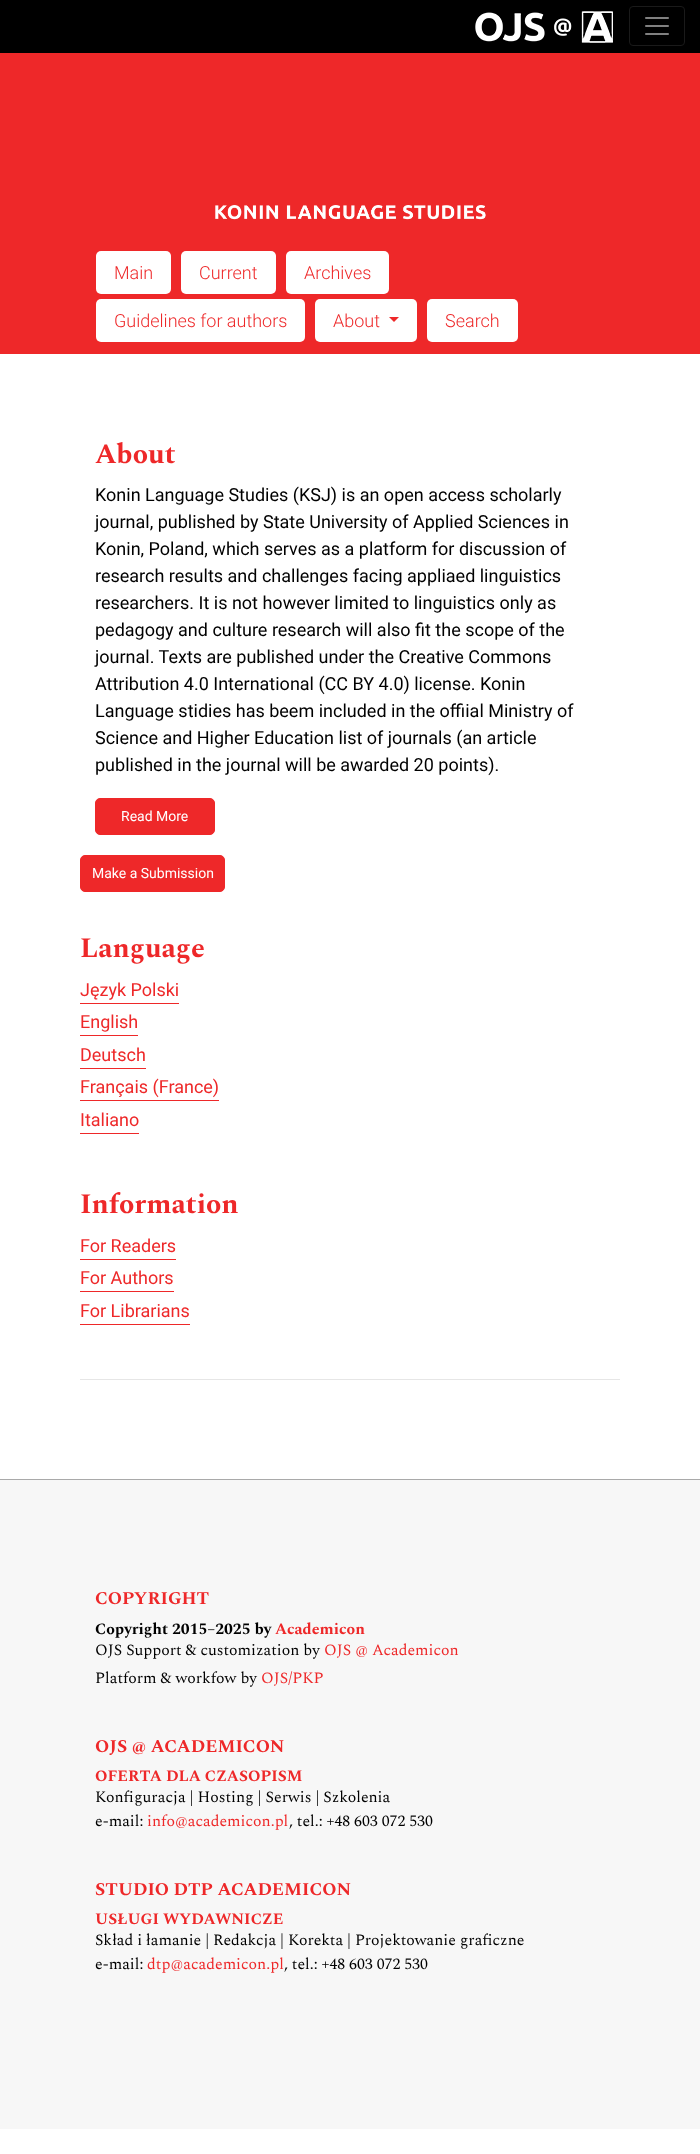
<svg xmlns="http://www.w3.org/2000/svg" width="700" height="2154">
	<rect width="100%" height="100%" fill="#FFFFFF" />
	<rect x="0" y="53" width="700" height="301" fill="#EE2829" />
	<rect x="0" y="0" width="700" height="53" fill="#000000" />
	<image x="475" y="11" width="138" height="32" href="assets/img1.png" />
	<rect x="629.5" y="6.5" width="55" height="39" rx="3.5" fill="none" stroke="#1A1A1A" />
	<image x="645" y="17" width="24" height="18" href="assets/img2.png" />
	<image x="215" y="205" width="271" height="15" href="assets/img3.png" />
	<rect x="96" y="251" width="75" height="43" rx="5" fill="#FFFFFF" />
	<text x="114" y="279" font-family="Roboto" font-size="18" font-weight="300" fill="#EE2829">Main</text>
	<rect x="181" y="251" width="95" height="43" rx="5" fill="#FFFFFF" />
	<text x="199" y="279" font-family="Roboto" font-size="18" font-weight="300" fill="#EE2829">Current</text>
	<rect x="286" y="251" width="103" height="43" rx="5" fill="#FFFFFF" />
	<text x="304" y="279" font-family="Roboto" font-size="18" font-weight="300" fill="#EE2829">Archives</text>
	<rect x="96" y="299" width="209" height="43" rx="5" fill="#FFFFFF" />
	<text x="114" y="327" font-family="Roboto" font-size="18" font-weight="300" fill="#EE2829">Guidelines for authors</text>
	<rect x="315" y="299" width="102" height="43" rx="5" fill="#FFFFFF" />
	<text x="333" y="327" font-family="Roboto" font-size="18" font-weight="300" fill="#EE2829">About</text>
	<path d="M389 317H399L394 322Z" fill="#EE2829" />
	<rect x="427" y="299" width="91" height="43" rx="5" fill="#FFFFFF" />
	<text x="445" y="327" font-family="Roboto" font-size="18" font-weight="300" fill="#EE2829">Search</text>
	<text x="95" y="463" font-family="Spectral" font-size="28" font-weight="700" fill="#EE2829">About</text>
	<g font-family="Roboto" font-size="18" fill="#000000">
		<text x="95" y="501">Konin Language Studies (KSJ) is an open access scholarly</text>
		<text x="95" y="528">journal, published by State University of Applied Sciences in</text>
		<text x="95" y="555">Konin, Poland, which serves as a platform for discussion of</text>
		<text x="95" y="582">research results and challenges facing appliaed linguistics</text>
		<text x="95" y="609">researchers. It is not however limited to linguistics only as</text>
		<text x="95" y="636">pedagogy and culture research will also fit the scope of the</text>
		<text x="95" y="663">journal. Texts are published under the Creative Commons</text>
		<text x="95" y="690">Attribution 4.0 International (CC BY 4.0) license. Konin</text>
		<text x="95" y="717">Language stidies has beem included in the offiial Ministry of</text>
		<text x="95" y="744">Science and Higher Education list of journals (an article</text>
		<text x="95" y="771">published in the journal will be awarded 20 points).</text>
	</g>
	<rect x="95.5" y="798.5" width="119" height="36" rx="4.5" fill="#EE2829" stroke="#EE2829" />
	<text x="121" y="821" font-family="Roboto" font-size="14" fill="#FFFFFF">Read More</text>
	<rect x="80.5" y="855.5" width="144" height="36" rx="4.5" fill="#EE2829" stroke="#EE2829" />
	<text x="92" y="878" font-family="Roboto" font-size="14" fill="#FFFFFF">Make a Submission</text>
	<text x="80" y="957" font-family="Spectral" font-size="28" font-weight="700" fill="#EE2829">Language</text>
	<text x="80" y="996" font-family="Roboto" font-size="18" fill="#EE2829">Język Polski</text>
	<rect x="80" y="1003" width="99" height="1" fill="#EE2829" />
	<text x="80" y="1028" font-family="Roboto" font-size="18" fill="#EE2829">English</text>
	<rect x="80" y="1035" width="58" height="1" fill="#EE2829" />
	<text x="80" y="1061" font-family="Roboto" font-size="18" fill="#EE2829">Deutsch</text>
	<rect x="80" y="1068" width="66" height="1" fill="#EE2829" />
	<text x="80" y="1093" font-family="Roboto" font-size="18" fill="#EE2829">Français (France)</text>
	<rect x="80" y="1100" width="139" height="1" fill="#EE2829" />
	<text x="80" y="1126" font-family="Roboto" font-size="18" fill="#EE2829">Italiano</text>
	<rect x="80" y="1133" width="59" height="1" fill="#EE2829" />
	<text x="80" y="1213" font-family="Spectral" font-size="28" font-weight="700" fill="#EE2829">Information</text>
	<text x="80" y="1252" font-family="Roboto" font-size="18" fill="#EE2829">For Readers</text>
	<rect x="80" y="1259" width="96" height="1" fill="#EE2829" />
	<text x="80" y="1284" font-family="Roboto" font-size="18" fill="#EE2829">For Authors</text>
	<rect x="80" y="1291" width="94" height="1" fill="#EE2829" />
	<text x="80" y="1317" font-family="Roboto" font-size="18" fill="#EE2829">For Librarians</text>
	<rect x="80" y="1324" width="110" height="1" fill="#EE2829" />
	<rect x="80" y="1379" width="540" height="1" fill="#E6E6E6" />
	<rect x="0" y="1480" width="700" height="649" fill="#F7F7F7" />
	<rect x="0" y="1479" width="700" height="1" fill="#A9A9A9" />
	<text x="95" y="1604" font-family="Spectral" font-size="18" font-weight="700" fill="#EE2829">COPYRIGHT</text>
	<text x="95" y="1634" font-family="Spectral" font-size="15.75" font-weight="700" fill="#000000">Copyright 2015–2025 by</text>
	<text x="275" y="1634" font-family="Spectral" font-size="15.75" font-weight="700" fill="#EE2829">Academicon</text>
	<text x="95" y="1655" font-family="Spectral" font-size="15.75" fill="#000000">OJS Support &amp; customization by</text>
	<text x="324" y="1655" font-family="Spectral" font-size="15.75" fill="#EE2829">OJS @ Academicon</text>
	<text x="95" y="1683" font-family="Spectral" font-size="15.75" fill="#000000">Platform &amp; workfow by</text>
	<text x="261" y="1683" font-family="Spectral" font-size="15.75" fill="#EE2829">OJS/PKP</text>
	<text x="95" y="1752" font-family="Spectral" font-size="18" font-weight="700" fill="#EE2829">OJS @ ACADEMICON</text>
	<text x="95" y="1781" font-family="Spectral" font-size="15.75" font-weight="700" fill="#EE2829">OFERTA DLA CZASOPISM</text>
	<g font-family="Spectral" font-size="15.75" fill="#000000">
		<text x="95" y="1802">Konfiguracja | Hosting | Serwis | Szkolenia</text>
		<text x="95" y="1826">e-mail:</text>
	</g>
	<text x="147" y="1826" font-family="Spectral" font-size="15.75" fill="#EE2829">info@academicon.pl</text>
	<text x="289" y="1826" font-family="Spectral" font-size="15.75" fill="#000000">, tel.: +48 603 072 530</text>
	<text x="95" y="1895" font-family="Spectral" font-size="18" font-weight="700" fill="#EE2829">STUDIO DTP ACADEMICON</text>
	<text x="95" y="1924" font-family="Spectral" font-size="15.75" font-weight="700" fill="#EE2829">USŁUGI WYDAWNICZE</text>
	<g font-family="Spectral" font-size="15.75" fill="#000000">
		<text x="95" y="1945">Skład i łamanie | Redakcja | Korekta | Projektowanie graficzne</text>
		<text x="95" y="1969">e-mail:</text>
	</g>
	<text x="147" y="1969" font-family="Spectral" font-size="15.75" fill="#EE2829">dtp@academicon.pl</text>
	<text x="284" y="1969" font-family="Spectral" font-size="15.75" fill="#000000">, tel.: +48 603 072 530</text>
</svg>
